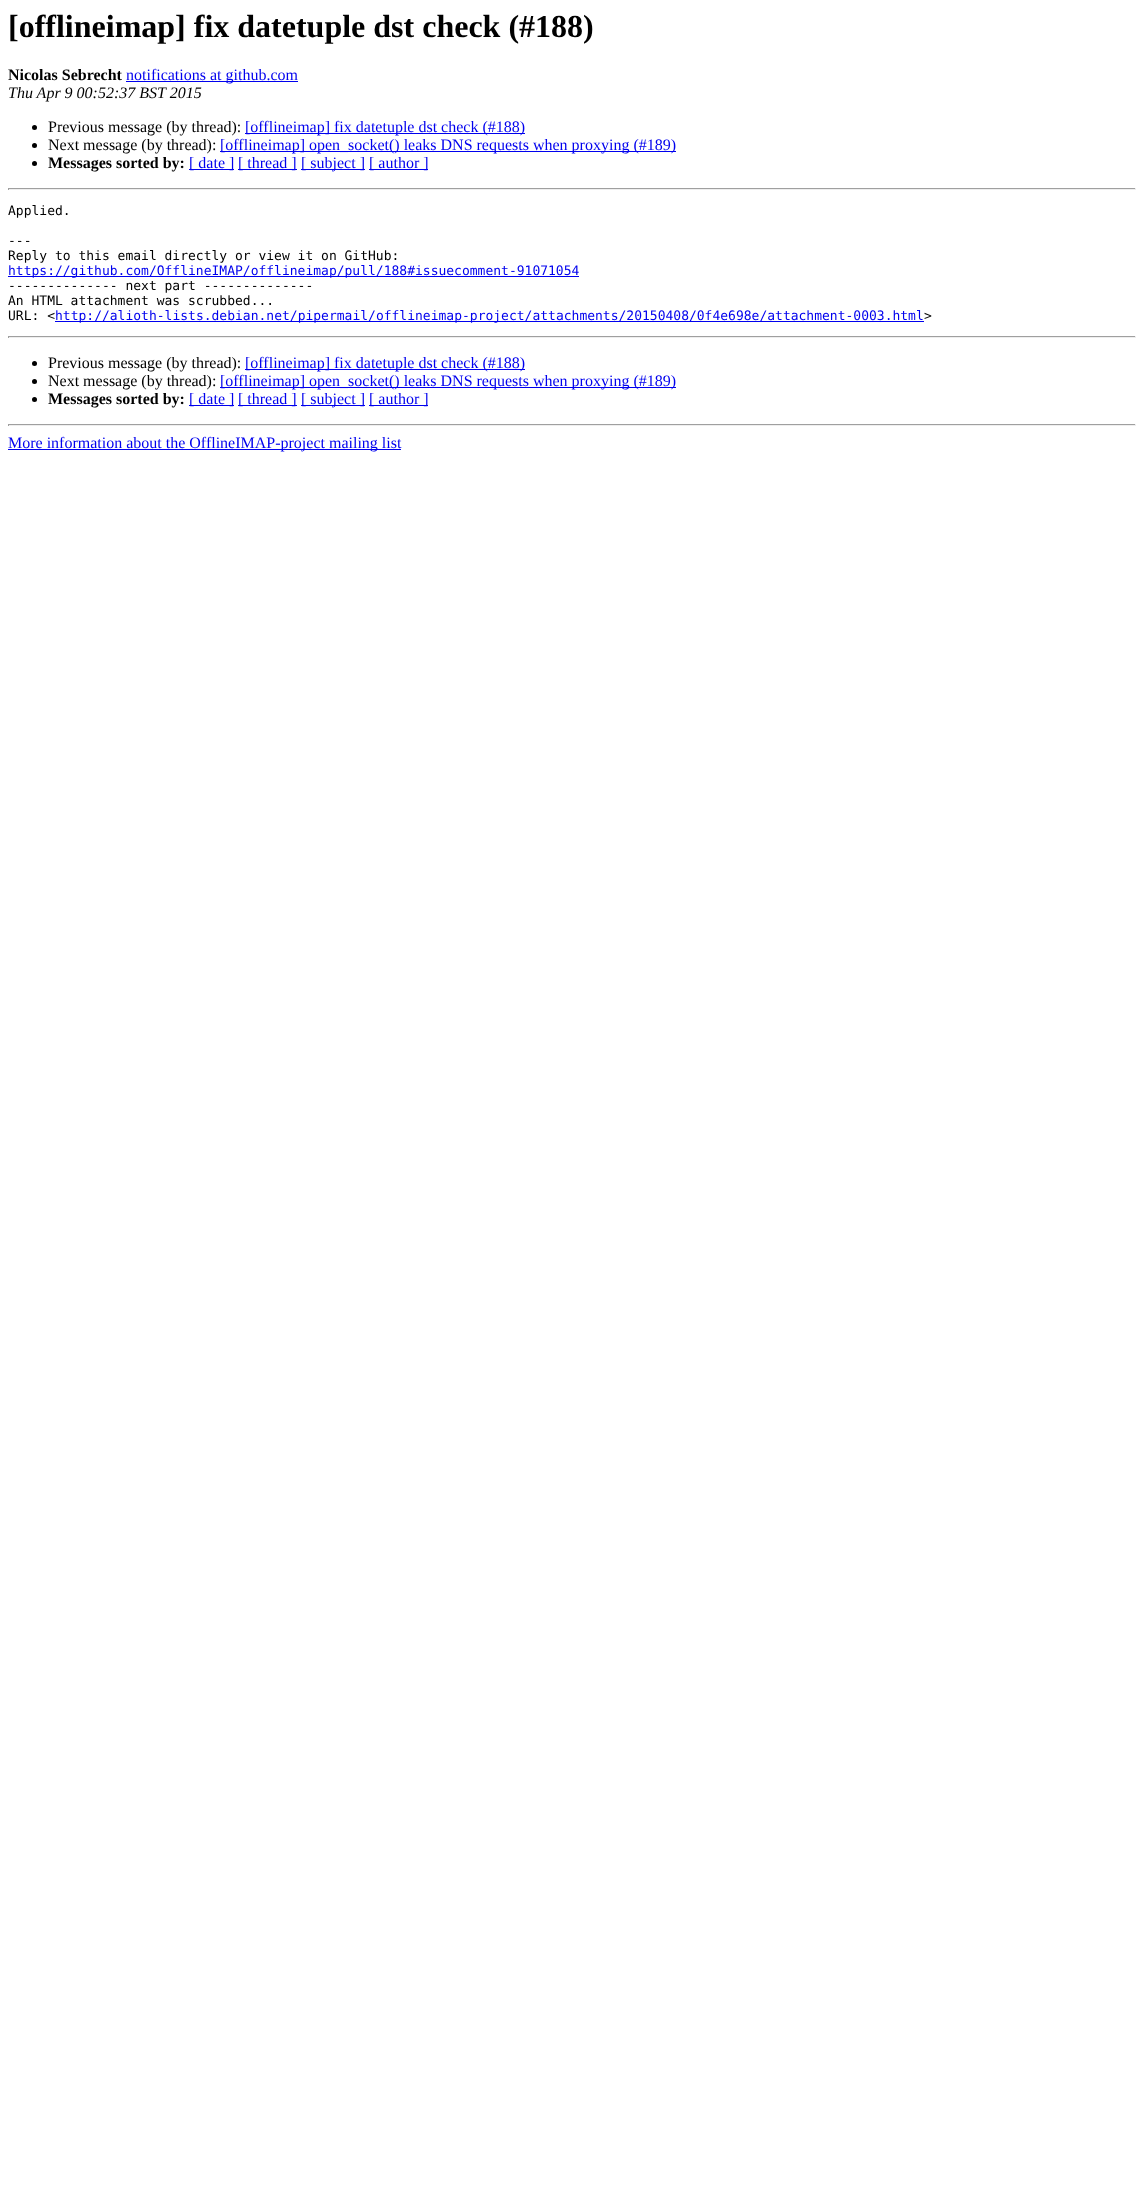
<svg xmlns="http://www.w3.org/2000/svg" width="1144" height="2192">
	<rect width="100%" height="100%" fill="#FFFFFF" />
	<text x="8" y="37" font-family="Liberation Serif" font-size="32" font-weight="700" fill="#000000">[offlineimap] fix datetuple dst check (#188)</text>
	<text x="8" y="80" font-family="Liberation Serif" font-size="16" font-weight="700" fill="#000000">Nicolas Sebrecht</text>
	<rect x="126" y="81" width="172" height="1" fill="#0000EE" />
	<text x="126" y="80" font-family="Liberation Serif" font-size="16" fill="#0000EE">notifications at github.com</text>
	<text x="8" y="98" font-family="Liberation Serif" font-size="16" font-style="italic" fill="#000000">Thu Apr 9 00:52:37 BST 2015</text>
	<circle cx="34.5" cy="127.5" r="2.5" fill="#000000" />
	<text x="48" y="132" font-family="Liberation Serif" font-size="16" fill="#000000">Previous message (by thread):</text>
	<rect x="245" y="133" width="280" height="1" fill="#0000EE" />
	<text x="245" y="132" font-family="Liberation Serif" font-size="16" fill="#0000EE">[offlineimap] fix datetuple dst check (#188)</text>
	<circle cx="34.5" cy="145.5" r="2.5" fill="#000000" />
	<text x="48" y="150" font-family="Liberation Serif" font-size="16" fill="#000000">Next message (by thread):</text>
	<rect x="220" y="151" width="456" height="1" fill="#0000EE" />
	<text x="220" y="150" font-family="Liberation Serif" font-size="16" fill="#0000EE">[offlineimap] open_socket() leaks DNS requests when proxying (#189)</text>
	<circle cx="34.5" cy="163.5" r="2.5" fill="#000000" />
	<text x="48" y="168" font-family="Liberation Serif" font-size="16" font-weight="700" fill="#000000">Messages sorted by:</text>
	<rect x="189" y="169" width="45" height="1" fill="#0000EE" />
	<text x="189" y="168" font-family="Liberation Serif" font-size="16" fill="#0000EE">[ date ]</text>
	<rect x="238" y="169" width="59" height="1" fill="#0000EE" />
	<text x="238" y="168" font-family="Liberation Serif" font-size="16" fill="#0000EE">[ thread ]</text>
	<rect x="301" y="169" width="64" height="1" fill="#0000EE" />
	<text x="301" y="168" font-family="Liberation Serif" font-size="16" fill="#0000EE">[ subject ]</text>
	<rect x="369" y="169" width="59" height="1" fill="#0000EE" />
	<text x="369" y="168" font-family="Liberation Serif" font-size="16" fill="#0000EE">[ author ]</text>
	<rect x="8" y="188" width="1128" height="1" fill="#9F9F9F" />
	<rect x="1135" y="188" width="1" height="2" fill="#EEEEEE" />
	<rect x="8" y="189" width="1128" height="1" fill="#EEEEEE" />
	<rect x="8" y="188" width="1" height="2" fill="#9F9F9F" />
	<g font-family="DejaVu Sans Mono" font-size="13" fill="#000000">
		<text x="8" y="215">Applied.</text>
		<text x="8" y="245">---</text>
		<text x="8" y="260">Reply to this email directly or view it on GitHub:</text>
	</g>
	<rect x="8" y="276" width="571" height="1" fill="#0000EE" />
	<text x="8" y="275" font-family="DejaVu Sans Mono" font-size="13" fill="#0000EE">https://github.com/OfflineIMAP/offlineimap/pull/188#issuecomment-91071054</text>
	<g font-family="DejaVu Sans Mono" font-size="13" fill="#000000">
		<text x="8" y="290">-------------- next part --------------</text>
		<text x="8" y="305">An HTML attachment was scrubbed...</text>
		<text x="8" y="320">URL: &lt;</text>
	</g>
	<rect x="55" y="321" width="869" height="1" fill="#0000EE" />
	<text x="55" y="320" font-family="DejaVu Sans Mono" font-size="13" fill="#0000EE">http://alioth-lists.debian.net/pipermail/offlineimap-project/attachments/20150408/0f4e698e/attachment-0003.html</text>
	<text x="924" y="320" font-family="DejaVu Sans Mono" font-size="13" fill="#000000">&gt;</text>
	<rect x="8" y="336" width="1128" height="1" fill="#9F9F9F" />
	<rect x="1135" y="336" width="1" height="2" fill="#EEEEEE" />
	<rect x="8" y="337" width="1128" height="1" fill="#EEEEEE" />
	<rect x="8" y="336" width="1" height="2" fill="#9F9F9F" />
	<circle cx="34.5" cy="363.5" r="2.5" fill="#000000" />
	<text x="48" y="368" font-family="Liberation Serif" font-size="16" fill="#000000">Previous message (by thread):</text>
	<rect x="245" y="369" width="280" height="1" fill="#0000EE" />
	<text x="245" y="368" font-family="Liberation Serif" font-size="16" fill="#0000EE">[offlineimap] fix datetuple dst check (#188)</text>
	<circle cx="34.5" cy="381.5" r="2.5" fill="#000000" />
	<text x="48" y="386" font-family="Liberation Serif" font-size="16" fill="#000000">Next message (by thread):</text>
	<rect x="220" y="387" width="456" height="1" fill="#0000EE" />
	<text x="220" y="386" font-family="Liberation Serif" font-size="16" fill="#0000EE">[offlineimap] open_socket() leaks DNS requests when proxying (#189)</text>
	<circle cx="34.5" cy="399.5" r="2.5" fill="#000000" />
	<text x="48" y="404" font-family="Liberation Serif" font-size="16" font-weight="700" fill="#000000">Messages sorted by:</text>
	<rect x="189" y="405" width="45" height="1" fill="#0000EE" />
	<text x="189" y="404" font-family="Liberation Serif" font-size="16" fill="#0000EE">[ date ]</text>
	<rect x="238" y="405" width="59" height="1" fill="#0000EE" />
	<text x="238" y="404" font-family="Liberation Serif" font-size="16" fill="#0000EE">[ thread ]</text>
	<rect x="301" y="405" width="64" height="1" fill="#0000EE" />
	<text x="301" y="404" font-family="Liberation Serif" font-size="16" fill="#0000EE">[ subject ]</text>
	<rect x="369" y="405" width="59" height="1" fill="#0000EE" />
	<text x="369" y="404" font-family="Liberation Serif" font-size="16" fill="#0000EE">[ author ]</text>
	<rect x="8" y="424" width="1128" height="1" fill="#9F9F9F" />
	<rect x="1135" y="424" width="1" height="2" fill="#EEEEEE" />
	<rect x="8" y="425" width="1128" height="1" fill="#EEEEEE" />
	<rect x="8" y="424" width="1" height="2" fill="#9F9F9F" />
	<rect x="8" y="449" width="393" height="1" fill="#0000EE" />
	<text x="8" y="448" font-family="Liberation Serif" font-size="16" fill="#0000EE">More information about the OfflineIMAP-project mailing list</text>
</svg>
